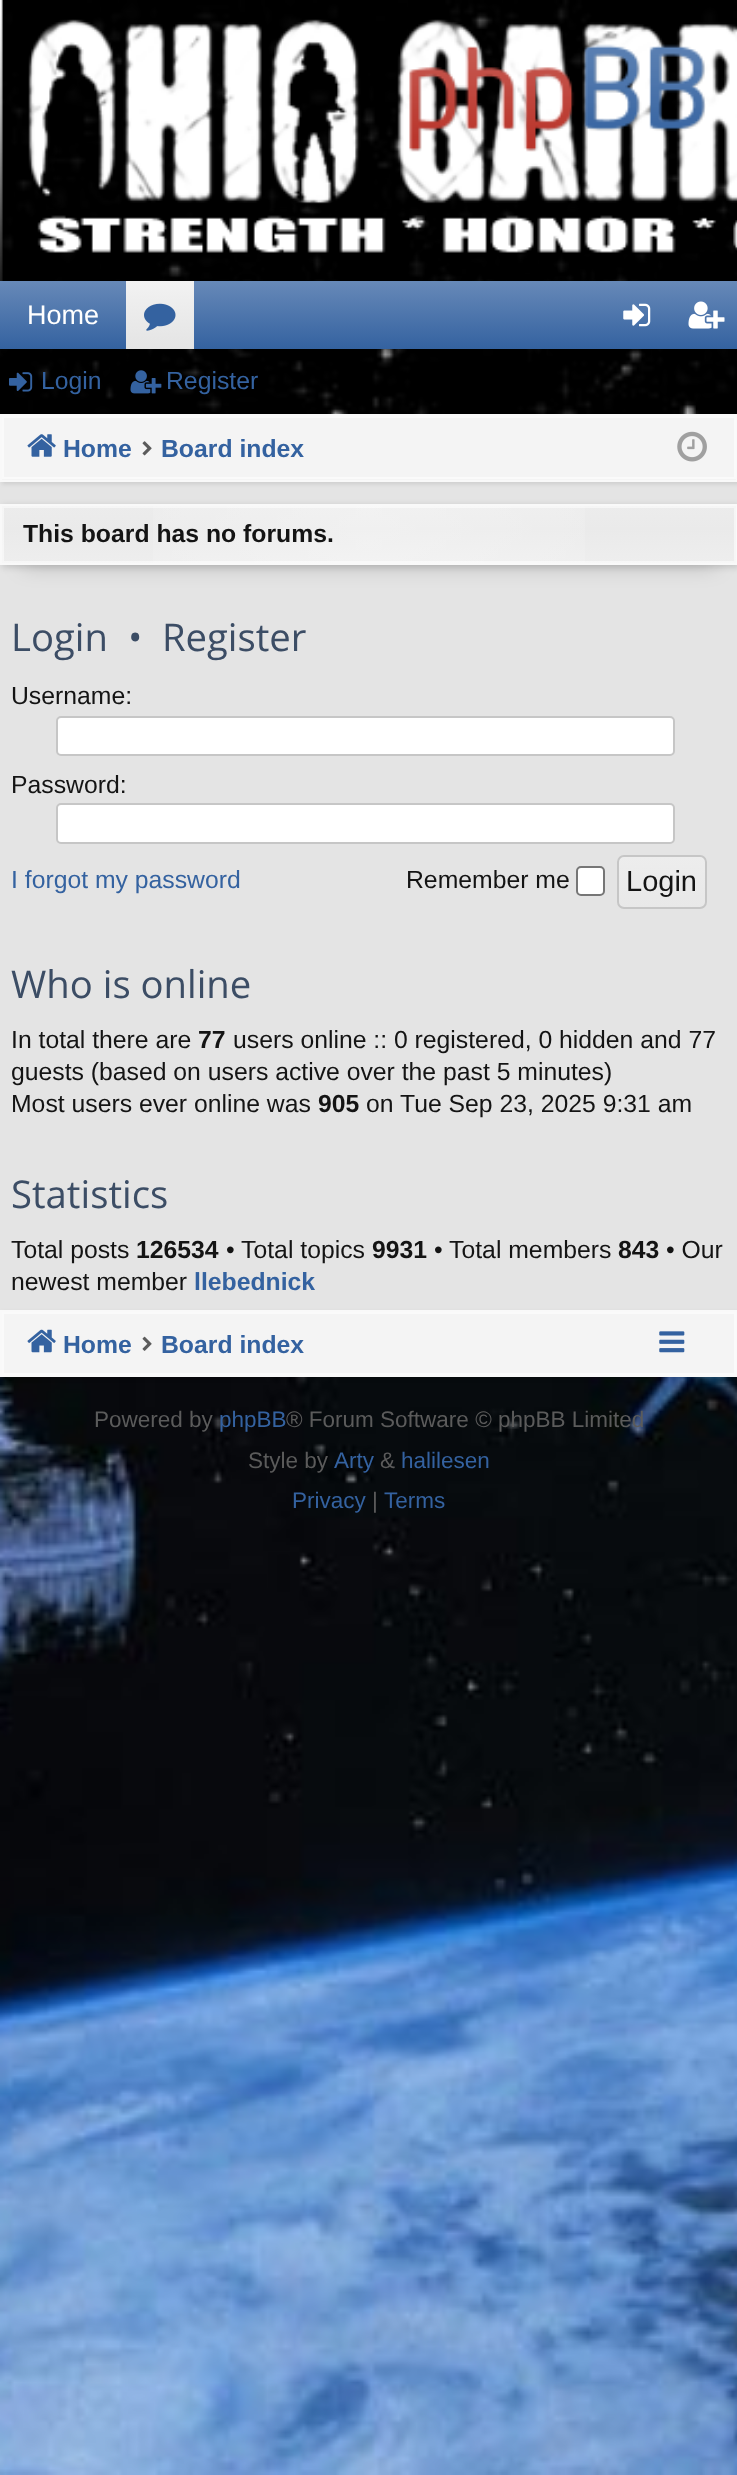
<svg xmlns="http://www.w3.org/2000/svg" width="737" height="2475">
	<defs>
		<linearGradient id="g1" gradientUnits="userSpaceOnUse" x1="369" y1="281" x2="369" y2="349"><stop offset="0" stop-color="#6789B8" /><stop offset="1" stop-color="#3462A0" /></linearGradient>
		<linearGradient id="g2" gradientUnits="userSpaceOnUse" x1="160" y1="281" x2="160" y2="349"><stop offset="0" stop-color="#F2F2F2" /><stop offset="1" stop-color="#E4E4E4" /></linearGradient>
		<linearGradient id="g3" gradientUnits="userSpaceOnUse" x1="369" y1="506" x2="369" y2="619"><stop offset="0" stop-color="#ECECEC" /><stop offset="0.2" stop-color="#EAEAEA" /><stop offset="1" stop-color="#F4F4F4" /></linearGradient>
		<linearGradient id="g4" gradientUnits="userSpaceOnUse" x1="2.2" y1="534" x2="736" y2="534"><stop offset="0" stop-color="#FFFFFF" stop-opacity="0" /><stop offset="0.5" stop-color="#FFFFFF" stop-opacity="0.3" /><stop offset="1" stop-color="#FFFFFF" stop-opacity="0" /></linearGradient>
		<clipPath id="clip1"><rect x="617" y="855" width="90" height="54" rx="7" /></clipPath>
		<linearGradient id="g5" gradientUnits="userSpaceOnUse" x1="662" y1="857" x2="662" y2="907"><stop offset="0" stop-color="#EDEDED" /><stop offset="1" stop-color="#E8E8E8" /></linearGradient>
	</defs>
	<rect width="100%" height="100%" fill="#FFFFFF" />
	<image x="0" y="1544" width="737" height="931" href="assets/img1.png" />
	<image x="0" y="0" width="737" height="1544" href="assets/img2.png" />
	<image x="0" y="0" width="737" height="281" href="assets/img3.png" />
	<image x="409" y="44" width="297" height="108" href="assets/img4.png" />
	<rect x="11" y="304" width="716" height="45" fill="#000000" fill-opacity="0.2" filter="blur(5.5px)" />
	<rect x="0" y="281" width="737" height="68" fill="url(#g1)" />
	<text x="27" y="324" font-family="Liberation Sans" font-size="27" fill="#FFFFFF">Home</text>
	<rect x="126" y="281" width="68" height="68" fill="url(#g2)" />
	<image x="144" y="303" width="32" height="28" href="assets/img5.png" />
	<image x="623" y="303" width="28" height="24" href="assets/img6.png" />
	<image x="688" y="301" width="37" height="28" href="assets/img7.png" />
	<image x="9" y="372" width="24" height="20" href="assets/img8.png" />
	<text x="41" y="389" font-family="Liberation Sans" font-size="24.75" fill="#3462A0">Login</text>
	<image x="130" y="370" width="32" height="24" href="assets/img9.png" />
	<text x="166" y="389" font-family="Liberation Sans" font-size="24.75" fill="#3462A0">Register</text>
	<rect x="0" y="482" width="737" height="828" fill="#E4E4E4" />
	<rect x="2" y="416" width="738" height="68" fill="#000000" fill-opacity="0.1" filter="blur(2px)" />
	<rect x="2" y="418" width="734" height="62" fill="#F4F4F4" />
	<rect x="3" y="417" width="732" height="61" fill="none" stroke="#FAFAFA" stroke-width="2" />
	<rect x="1" y="415" width="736" height="66" fill="none" stroke="#F9F9F9" stroke-width="2" />
	<image x="27" y="434" width="29" height="23" href="assets/img10.png" />
	<text x="63" y="457" font-family="Liberation Sans" font-size="24.75" font-weight="700" fill="#3462A0">Home</text>
	<image x="142" y="441" width="10" height="15" href="assets/img11.png" />
	<text x="161" y="457" font-family="Liberation Sans" font-size="24.75" font-weight="700" fill="#3462A0">Board index</text>
	<image x="677" y="431" width="30" height="31" href="assets/img12.png" />
	<rect x="23" y="549" width="693" height="16" fill="#000000" fill-opacity="0.2" filter="blur(11px)" />
	<rect x="2" y="506" width="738" height="61" fill="#000000" fill-opacity="0.15" filter="blur(3.5px)" />
	<rect x="2" y="506" width="734" height="57" fill="url(#g3)" />
	<rect x="153" y="506" width="432" height="57" fill="url(#g4)" />
	<rect x="3" y="507" width="732" height="55" fill="none" stroke="#FFFFFF" stroke-opacity="0.5" stroke-width="2" />
	<rect x="1" y="505" width="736" height="59" fill="none" stroke="#F9F9F9" stroke-width="2" />
	<text x="23" y="542" font-family="Liberation Sans" font-size="24.75" font-weight="700" fill="#141414">This board has no forums.</text>
	<g font-family="Open Sans" font-size="38.25" fill="#3C4D65">
		<text x="11" y="651">Login</text>
		<text x="128" y="651">•</text>
		<text x="162" y="651">Register</text>
	</g>
	<text x="11" y="704" font-family="Liberation Sans" font-size="24.75" fill="#141414">Username:</text>
	<rect x="57" y="717" width="617" height="38" rx="4" fill="#FFFFFF" stroke="#C6C6C6" stroke-width="2" />
	<text x="11" y="793" font-family="Liberation Sans" font-size="24.75" fill="#141414">Password:</text>
	<rect x="57" y="804" width="617" height="39" rx="4" fill="#FFFFFF" stroke="#C6C6C6" stroke-width="2" />
	<text x="11" y="888" font-family="Liberation Sans" font-size="24.75" fill="#3462A0">I forgot my password</text>
	<text x="406" y="888" font-family="Liberation Sans" font-size="24.75" fill="#141414">Remember me</text>
	<rect x="577" y="867" width="27" height="28" rx="4" fill="#FFFFFF" stroke="#767676" stroke-width="2" />
	<g clip-path="url(#clip1)">
		<rect x="617" y="857" width="90" height="50" fill="url(#g5)" />
	</g>
	<rect x="618" y="856" width="88" height="52" rx="6" fill="none" stroke="#C6C6C6" stroke-width="2" />
	<text x="626" y="891" font-family="Liberation Sans" font-size="29" fill="#141414">Login</text>
	<text x="11" y="998" font-family="Open Sans" font-size="38.25" fill="#3C4D65">Who is online</text>
	<text x="11" y="1048" font-family="Liberation Sans" font-size="24.75" fill="#141414">In total there are</text>
	<text x="198" y="1048" font-family="Liberation Sans" font-size="24.75" font-weight="700" fill="#141414">77</text>
	<g font-family="Liberation Sans" font-size="24.75" fill="#141414">
		<text x="233" y="1048">users online :: 0 registered, 0 hidden and 77</text>
		<text x="11" y="1080">guests (based on users active over the past 5 minutes)</text>
		<text x="11" y="1112">Most users ever online was</text>
	</g>
	<text x="318" y="1112" font-family="Liberation Sans" font-size="24.75" font-weight="700" fill="#141414">905</text>
	<text x="366" y="1112" font-family="Liberation Sans" font-size="24.75" fill="#141414">on Tue Sep 23, 2025 9:31 am</text>
	<text x="11" y="1208" font-family="Open Sans" font-size="38.25" fill="#3C4D65">Statistics</text>
	<text x="11" y="1258" font-family="Liberation Sans" font-size="24.75" fill="#141414">Total posts</text>
	<text x="136" y="1258" font-family="Liberation Sans" font-size="24.75" font-weight="700" fill="#141414">126534</text>
	<text x="226" y="1258" font-family="Liberation Sans" font-size="24.75" fill="#141414">• Total topics</text>
	<text x="372" y="1258" font-family="Liberation Sans" font-size="24.75" font-weight="700" fill="#141414">9931</text>
	<text x="434" y="1258" font-family="Liberation Sans" font-size="24.75" fill="#141414">• Total members</text>
	<text x="618" y="1258" font-family="Liberation Sans" font-size="24.75" font-weight="700" fill="#141414">843</text>
	<g font-family="Liberation Sans" font-size="24.75" fill="#141414">
		<text x="666" y="1258">• Our</text>
		<text x="11" y="1290">newest member</text>
	</g>
	<text x="194" y="1290" font-family="Liberation Sans" font-size="24.75" font-weight="700" fill="#3462A0">llebednick</text>
	<rect x="2" y="1312" width="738" height="67" fill="#000000" fill-opacity="0.1" filter="blur(2px)" />
	<rect x="3" y="1313" width="732" height="61" fill="#F4F4F4" stroke="#FAFAFA" stroke-width="2" />
	<rect x="1" y="1311" width="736" height="65" fill="none" stroke="#F9F9F9" stroke-width="2" />
	<image x="27" y="1329" width="29" height="24" href="assets/img13.png" />
	<text x="63" y="1353" font-family="Liberation Sans" font-size="24.75" font-weight="700" fill="#3462A0">Home</text>
	<image x="142" y="1336" width="10" height="15" href="assets/img14.png" />
	<text x="161" y="1353" font-family="Liberation Sans" font-size="24.75" font-weight="700" fill="#3462A0">Board index</text>
	<image x="659" y="1331" width="26" height="22" href="assets/img15.png" />
	<text x="94" y="1427" font-family="Liberation Sans" font-size="22.5" fill="#5B5B5B">Powered by</text>
	<text x="219" y="1427" font-family="Liberation Sans" font-size="22.5" fill="#3462A0">phpBB</text>
	<g font-family="Liberation Sans" font-size="22.5" fill="#5B5B5B">
		<text x="286" y="1427">® Forum Software © phpBB Limited</text>
		<text x="248" y="1468">Style by</text>
	</g>
	<text x="334" y="1468" font-family="Liberation Sans" font-size="22.5" fill="#3462A0">Arty</text>
	<text x="380" y="1468" font-family="Liberation Sans" font-size="22.5" fill="#5B5B5B">&amp;</text>
	<g font-family="Liberation Sans" font-size="22.5" fill="#3462A0">
		<text x="401" y="1468">halilesen</text>
		<text x="292" y="1508">Privacy</text>
	</g>
	<text x="372" y="1508" font-family="Liberation Sans" font-size="22.5" fill="#5B5B5B">|</text>
	<text x="384" y="1508" font-family="Liberation Sans" font-size="22.5" fill="#3462A0">Terms</text>
</svg>
